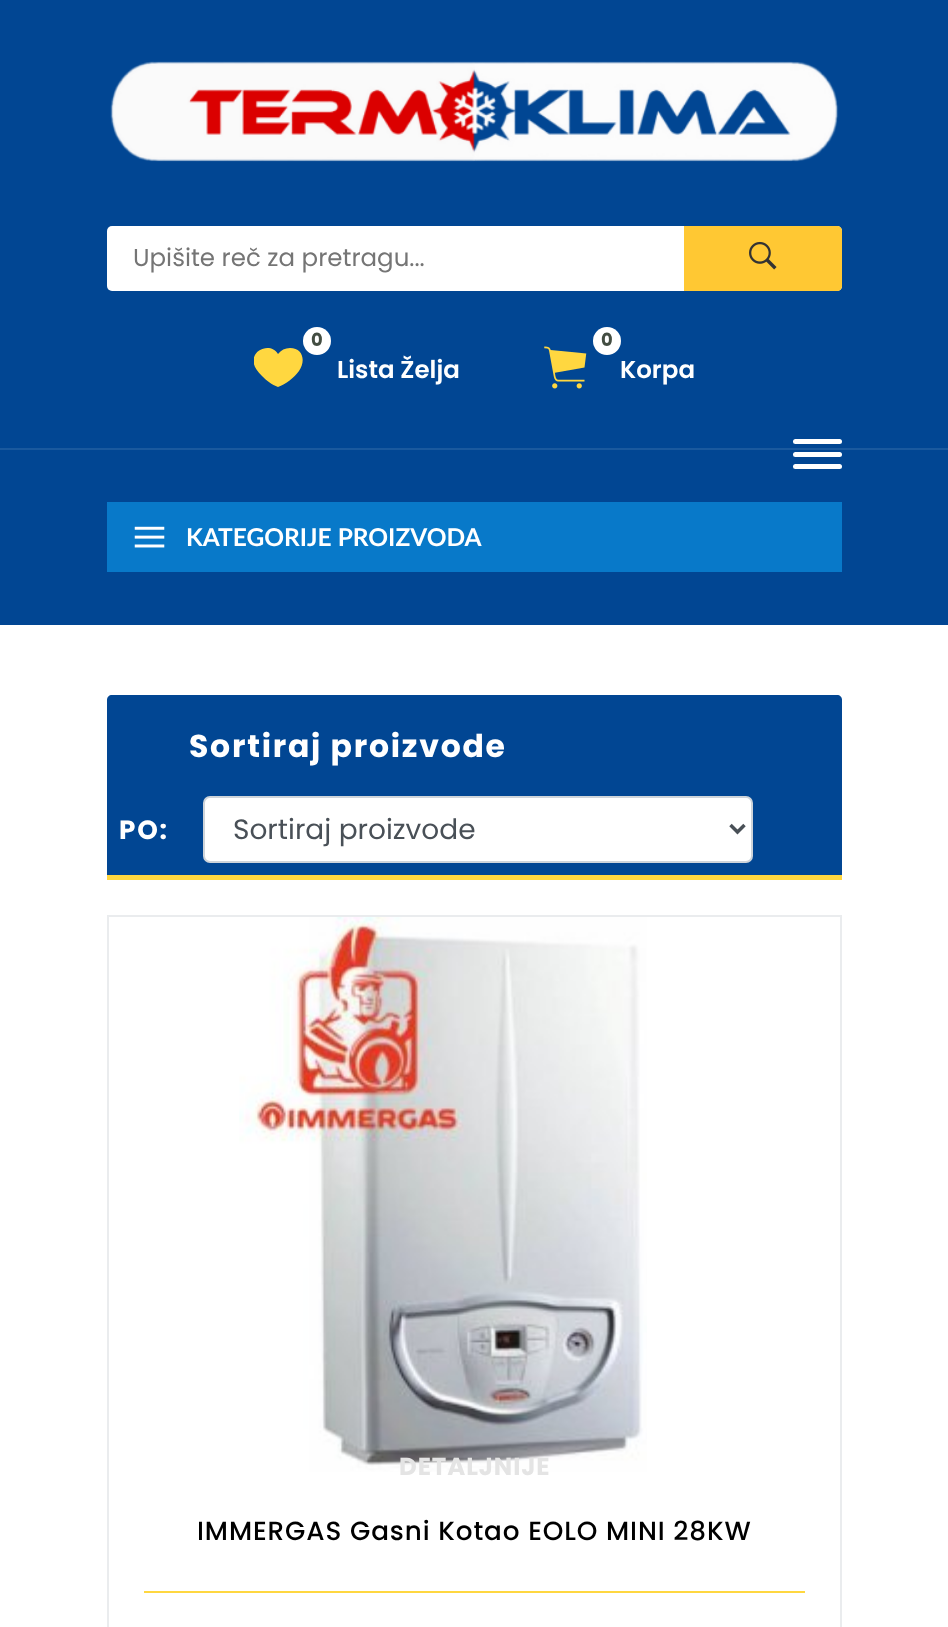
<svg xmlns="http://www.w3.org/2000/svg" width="948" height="1627">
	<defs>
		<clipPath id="clip1"><rect x="254" y="326" width="206" height="87" /></clipPath>
	</defs>
	<rect width="100%" height="100%" fill="#014693" />
	<image x="110" y="61" width="729" height="101" href="assets/img1.png" />
	<rect x="107" y="226" width="735" height="65" rx="5" fill="#FFFFFF" />
	<text x="133" y="266" font-family="Poppins" font-size="24.5" fill="#757575">Upišite reč za pretragu...</text>
	<path d="M684 226H837C840 226 842 228 842 231V286C842 289 840 291 837 291H684Z" fill="#FFC833" />
	<image x="749" y="241" width="28" height="29" href="assets/img2.png" />
	<g clip-path="url(#clip1)">
		<path d="M290 348C303 348 306 361 299 371C294 378 286 384 278 387C272 385 266 380 262 376C239 355 269 339 278 354C281 350 285 348 290 348Z" fill="#FFD740" />
	</g>
	<circle cx="317" cy="341" r="14" fill="#FFFFFF" />
	<text x="311" y="346" font-family="Poppins" font-size="18" font-weight="700" fill="#434D42">0</text>
	<text x="337" y="378" font-family="Poppins" font-size="24.5" font-weight="600" fill="#FFFFFF">Lista Želja</text>
	<image x="544" y="346" width="43" height="43" href="assets/img3.png" />
	<circle cx="607" cy="341" r="14" fill="#FFFFFF" />
	<text x="601" y="346" font-family="Poppins" font-size="18" font-weight="700" fill="#434D42">0</text>
	<text x="620" y="378" font-family="Poppins" font-size="24.5" font-weight="600" fill="#FFFFFF">Korpa</text>
	<rect x="0" y="448" width="948" height="2" fill="#1A599E" />
	<rect x="793" y="439" width="49" height="5" rx="2.5" fill="#FFFFFF" />
	<rect x="793" y="452" width="49" height="5" rx="2.5" fill="#FFFFFF" />
	<rect x="793" y="464" width="49" height="5" rx="2.5" fill="#FFFFFF" />
	<rect x="107" y="502" width="735" height="70" fill="#0879C9" />
	<image x="134" y="526" width="31" height="22" href="assets/img4.png" />
	<text x="186" y="546" font-family="Lato" font-size="24.5" font-weight="700" fill="#FFFFFF">KATEGORIJE PROIZVODA</text>
	<rect x="0" y="625" width="948" height="1002" fill="#FFFFFF" />
	<path d="M112 695H837C840 695 842 697 842 700V880H107V700C107 697 109 695 112 695Z" fill="#014693" />
	<rect x="107" y="875" width="735" height="5" fill="#FFD740" />
	<text x="189" y="757" font-family="Poppins" font-size="31.5" font-weight="700" letter-spacing="1.75" fill="#FFFFFF">Sortiraj proizvode</text>
	<text x="119" y="839" font-family="Poppins" font-size="26.25" font-weight="700" letter-spacing="1.75" fill="#FFFFFF">PO:</text>
	<rect x="204" y="797" width="548" height="65" rx="6" fill="#FFFFFF" stroke="#CED4DA" stroke-width="2" />
	<path d="M730.5 825L737.5 832L744.5 825" fill="none" stroke="#495057" stroke-width="3.5" />
	<text x="233" y="839" font-family="Poppins" font-size="28" fill="#495057">Sortiraj proizvode</text>
	<rect x="108" y="916" width="733" height="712" fill="none" stroke="#EAECEE" stroke-width="2" />
	<image x="239" y="917" width="408" height="555" href="assets/img5.png" />
	<text x="399" y="1475" font-family="Poppins" font-size="24.5" font-weight="700" letter-spacing="0.9" fill="#E4E4E4">DETALJNIJE</text>
	<rect x="144" y="1591" width="661" height="2" fill="#FFD740" />
	<text x="197" y="1540" font-family="Poppins" font-size="26.25" font-weight="500" letter-spacing="0.9" fill="#000000">IMMERGAS Gasni Kotao EOLO MINI 28KW</text>
</svg>
